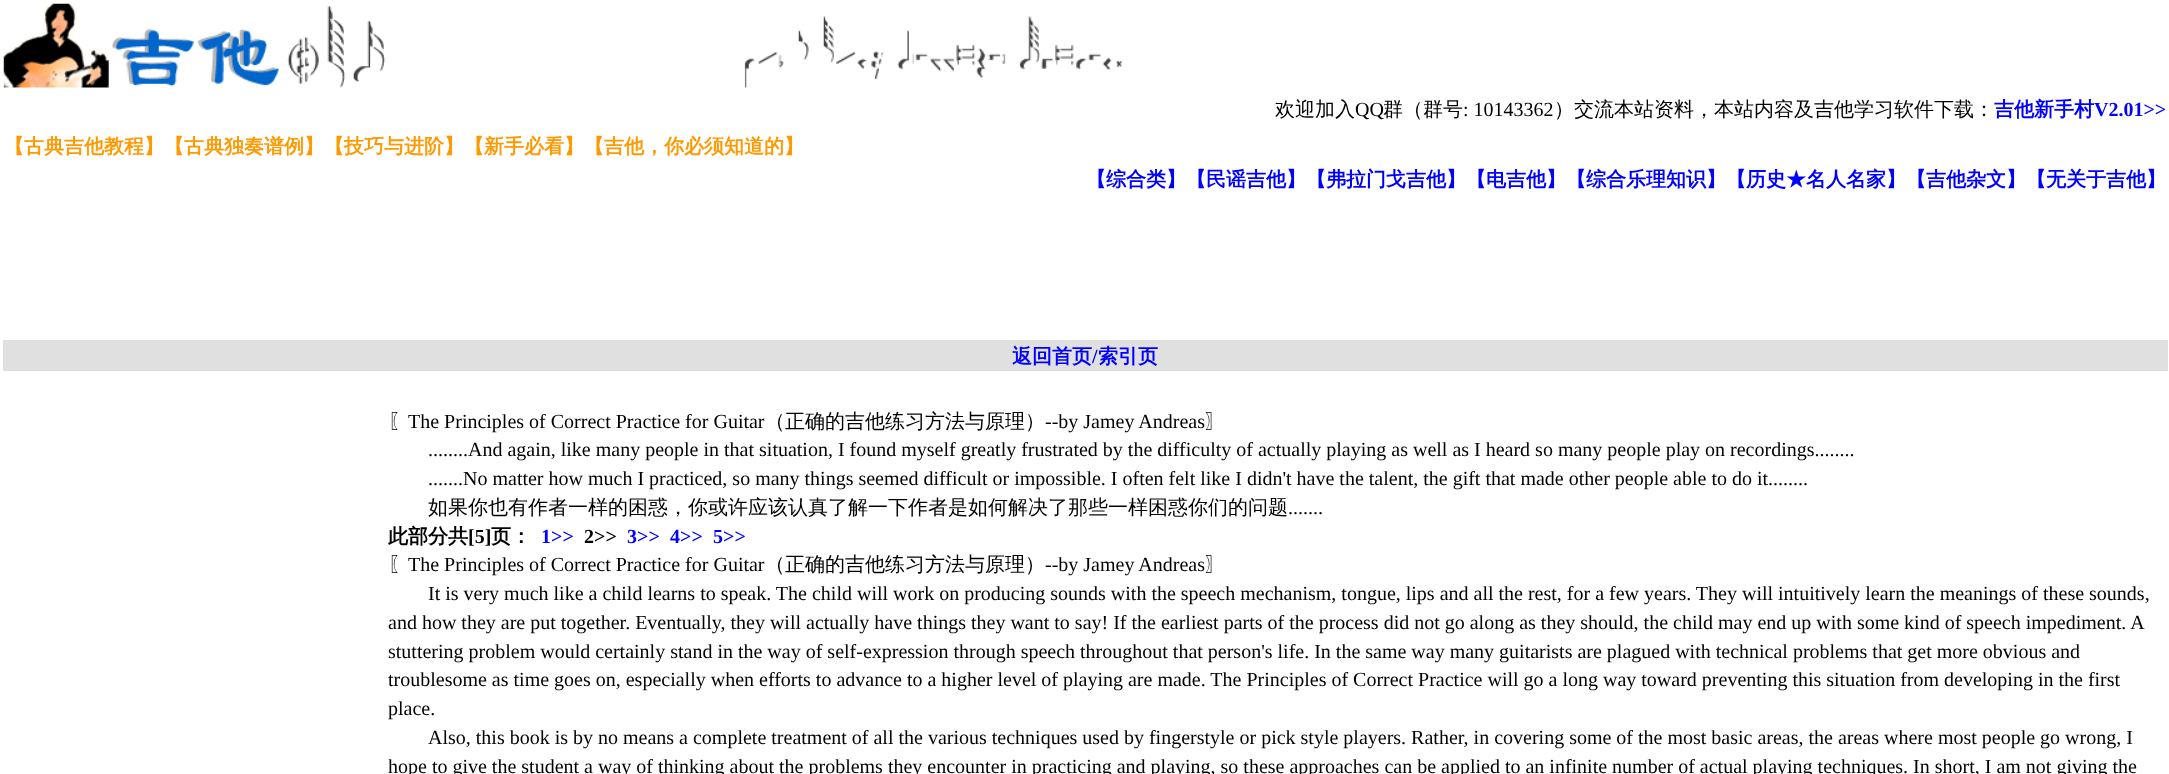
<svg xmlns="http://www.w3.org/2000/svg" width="2169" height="774">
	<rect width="100%" height="100%" fill="#FFFFFF" />
	<image x="3" y="3" width="1120" height="85" href="assets/img1.png" />
	<text x="1275" y="116" font-family="WenQuanYi Zen Hei" font-size="20" font-weight="500" fill="#000000">欢迎加入</text>
	<text x="1355" y="116" font-family="Liberation Serif" font-size="20" fill="#000000">QQ</text>
	<text x="1383" y="116" font-family="WenQuanYi Zen Hei" font-size="20" font-weight="500" fill="#000000">群（群号</text>
	<text x="1463" y="116" font-family="Liberation Serif" font-size="20" fill="#000000">: 10143362</text>
	<text x="1554" y="116" font-family="WenQuanYi Zen Hei" font-size="20" font-weight="500" fill="#000000">）交流本站资料，本站内容及吉他学习软件下载：</text>
	<text x="1994" y="116" font-family="WenQuanYi Zen Hei" font-size="20" font-weight="700" fill="#0000FF">吉他新手村</text>
	<text x="2094" y="116" font-family="Liberation Serif" font-size="20" font-weight="700" fill="#0000FF">V2.01&gt;&gt;</text>
	<text x="4" y="153" font-family="WenQuanYi Zen Hei" font-size="20" font-weight="700" fill="#FF9900">【古典吉他教程】【古典独奏谱例】【技巧与进阶】【新手必看】【吉他，你必须知道的】</text>
	<text x="1086" y="186" font-family="WenQuanYi Zen Hei" font-size="20" font-weight="700" fill="#0000FF">【综合类】【民谣吉他】【弗拉门戈吉他】【电吉他】【综合乐理知识】【历史★名人名家】【吉他杂文】【无关于吉他】</text>
	<rect x="3" y="340" width="2165" height="31" fill="#E0E0E0" />
	<text x="1012" y="363" font-family="WenQuanYi Zen Hei" font-size="20" font-weight="700" fill="#0000FF">返回首页</text>
	<text x="1092" y="363" font-family="Liberation Serif" font-size="20" font-weight="700" fill="#0000FF">/</text>
	<text x="1098" y="363" font-family="WenQuanYi Zen Hei" font-size="20" font-weight="700" fill="#0000FF">索引页</text>
	<text x="388" y="428" font-family="WenQuanYi Zen Hei" font-size="20" font-weight="500" fill="#000000">〖</text>
	<text x="408" y="428" font-family="Liberation Serif" font-size="20" fill="#000000">The Principles of Correct Practice for Guitar</text>
	<text x="765" y="428" font-family="WenQuanYi Zen Hei" font-size="20" font-weight="500" fill="#000000">（正确的吉他练习方法与原理）</text>
	<text x="1045" y="428" font-family="Liberation Serif" font-size="20" fill="#000000">--by Jamey Andreas</text>
	<text x="1205" y="428" font-family="WenQuanYi Zen Hei" font-size="20" font-weight="500" fill="#000000">〗</text>
	<g font-family="Liberation Serif" font-size="20" fill="#000000">
		<text x="428" y="456">........And again, like many people in that situation, I found myself greatly frustrated by the difficulty of actually playing as well as I heard so many people play on recordings........</text>
		<text x="428" y="485">.......No matter how much I practiced, so many things seemed difficult or impossible. I often felt like I didn't have the talent, the gift that made other people able to do it........</text>
	</g>
	<text x="428" y="514" font-family="WenQuanYi Zen Hei" font-size="20" font-weight="500" fill="#000000">如果你也有作者一样的困惑，你或许应该认真了解一下作者是如何解决了那些一样困惑你们的问题</text>
	<text x="1288" y="514" font-family="Liberation Serif" font-size="20" fill="#000000">.......</text>
	<text x="388" y="543" font-family="WenQuanYi Zen Hei" font-size="20" font-weight="700" fill="#000000">此部分共</text>
	<text x="468" y="543" font-family="Liberation Serif" font-size="20" font-weight="700" fill="#000000">[5]</text>
	<text x="491" y="543" font-family="WenQuanYi Zen Hei" font-size="20" font-weight="700" fill="#000000">页：</text>
	<text x="541" y="543" font-family="Liberation Serif" font-size="20" font-weight="700" fill="#0000FF">1&gt;&gt;</text>
	<text x="584" y="543" font-family="Liberation Serif" font-size="20" font-weight="700" fill="#000000">2&gt;&gt;</text>
	<g font-family="Liberation Serif" font-size="20" font-weight="700" fill="#0000FF">
		<text x="627" y="543">3&gt;&gt;</text>
		<text x="670" y="543">4&gt;&gt;</text>
		<text x="713" y="543">5&gt;&gt;</text>
	</g>
	<text x="388" y="571" font-family="WenQuanYi Zen Hei" font-size="20" font-weight="500" fill="#000000">〖</text>
	<text x="408" y="571" font-family="Liberation Serif" font-size="20" fill="#000000">The Principles of Correct Practice for Guitar</text>
	<text x="765" y="571" font-family="WenQuanYi Zen Hei" font-size="20" font-weight="500" fill="#000000">（正确的吉他练习方法与原理）</text>
	<text x="1045" y="571" font-family="Liberation Serif" font-size="20" fill="#000000">--by Jamey Andreas</text>
	<text x="1205" y="571" font-family="WenQuanYi Zen Hei" font-size="20" font-weight="500" fill="#000000">〗</text>
	<g font-family="Liberation Serif" font-size="20" fill="#000000">
		<text x="428" y="600">It is very much like a child learns to speak. The child will work on producing sounds with the speech mechanism, tongue, lips and all the rest, for a few years. They will intuitively learn the meanings of these sounds,</text>
		<text x="388" y="629">and how they are put together. Eventually, they will actually have things they want to say! If the earliest parts of the process did not go along as they should, the child may end up with some kind of speech impediment. A</text>
		<text x="388" y="658">stuttering problem would certainly stand in the way of self-expression through speech throughout that person's life. In the same way many guitarists are plagued with technical problems that get more obvious and</text>
		<text x="388" y="686">troublesome as time goes on, especially when efforts to advance to a higher level of playing are made. The Principles of Correct Practice will go a long way toward preventing this situation from developing in the first</text>
		<text x="388" y="715">place.</text>
		<text x="428" y="744">Also, this book is by no means a complete treatment of all the various techniques used by fingerstyle or pick style players. Rather, in covering some of the most basic areas, the areas where most people go wrong, I</text>
		<text x="388" y="773">hope to give the student a way of thinking about the problems they encounter in practicing and playing, so these approaches can be applied to an infinite number of actual playing techniques. In short, I am not giving the</text>
	</g>
</svg>
